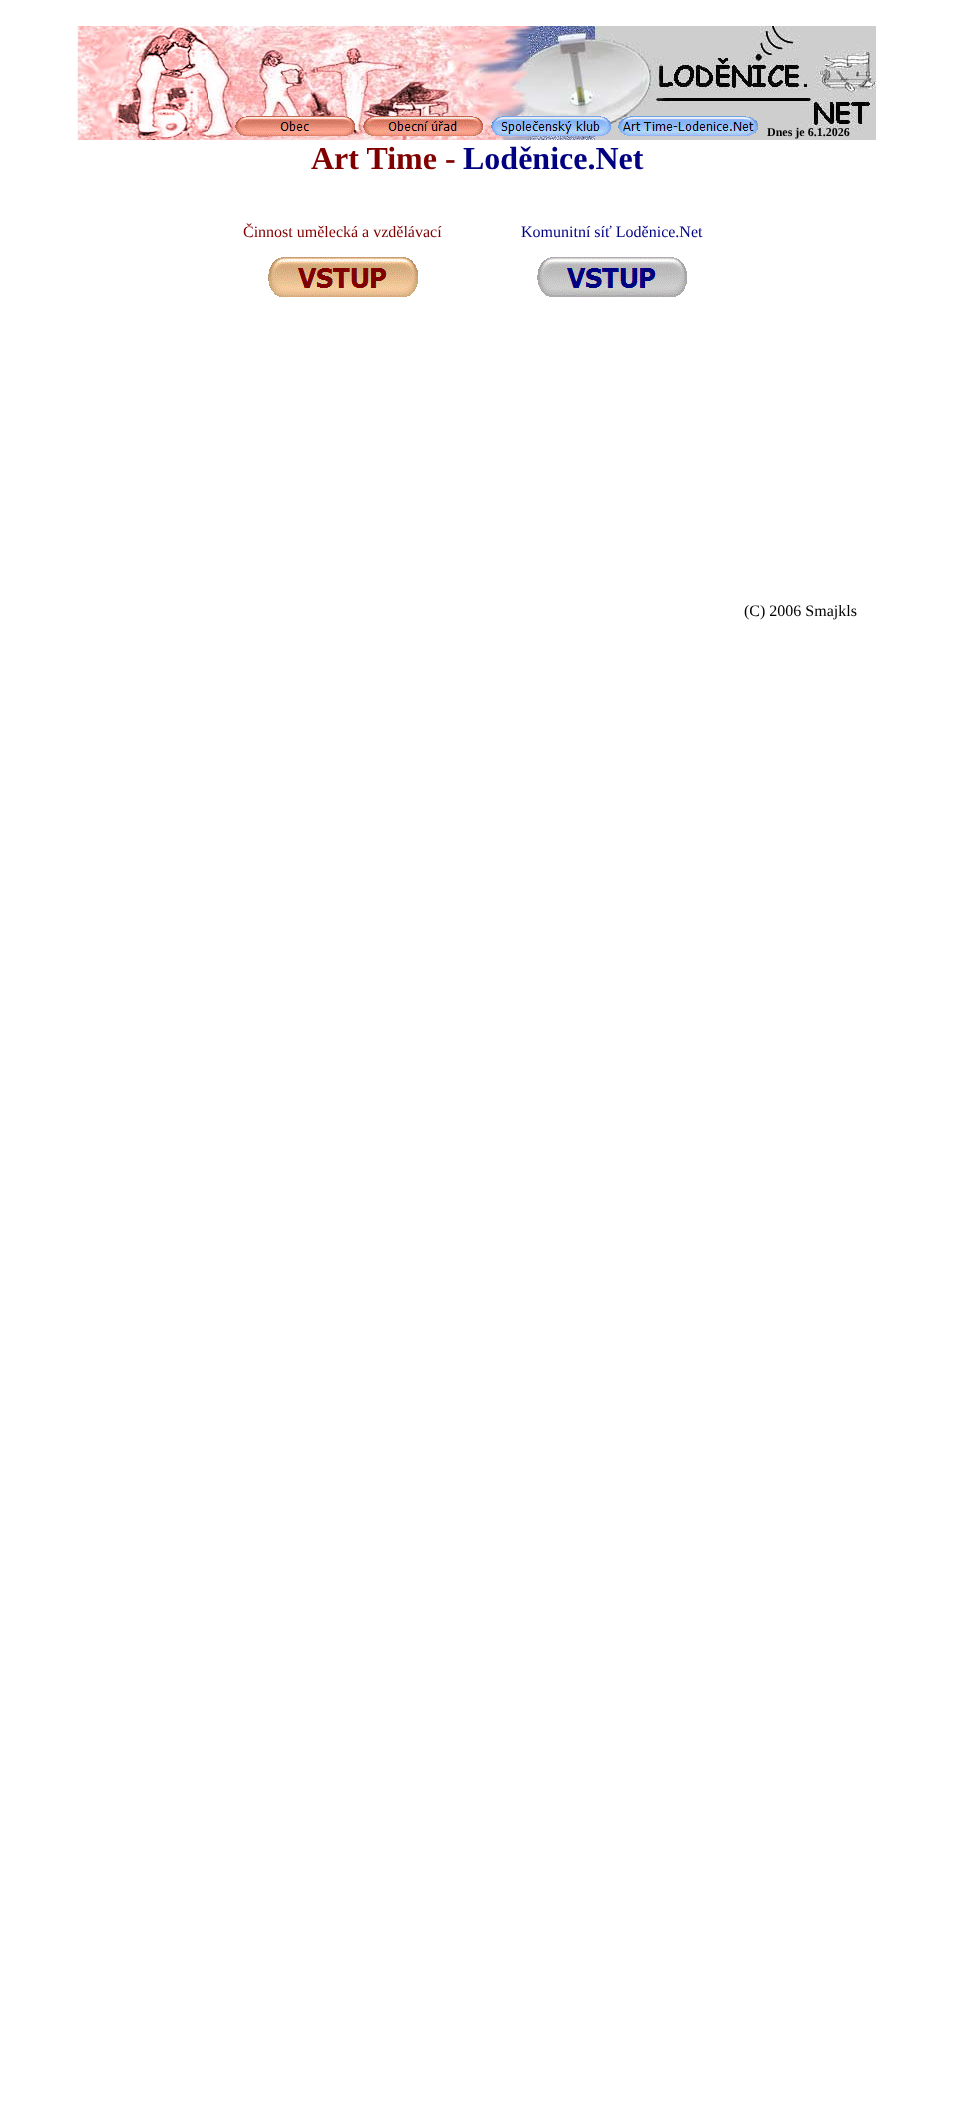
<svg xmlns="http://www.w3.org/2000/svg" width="954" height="2121">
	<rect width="100%" height="100%" fill="#FFFFFF" />
	<image x="77" y="26" width="131" height="114" href="assets/img1.png" />
	<image x="208" y="26" width="669" height="114" href="assets/img2.png" />
	<image x="235" y="116" width="120" height="20" href="assets/img3.png" />
	<image x="363" y="116" width="120" height="20" href="assets/img4.png" />
	<image x="491" y="116" width="120" height="20" href="assets/img5.png" />
	<image x="618" y="116" width="140" height="20" href="assets/img6.png" />
	<text x="767" y="136" font-family="Liberation Serif" font-size="12" font-weight="700" fill="#000000">Dnes je 6.1.2026</text>
	<text x="311" y="169" font-family="Liberation Serif" font-size="32" font-weight="700" fill="#800000">Art Time -</text>
	<text x="463" y="169" font-family="Liberation Serif" font-size="32" font-weight="700" fill="#000080">Loděnice.Net</text>
	<text x="243" y="237" font-family="Liberation Serif" font-size="16" fill="#800000">Činnost umělecká a vzdělávací</text>
	<image x="268" y="257" width="150" height="40" href="assets/img7.png" />
	<text x="521" y="237" font-family="Liberation Serif" font-size="16" fill="#000080">Komunitní síť Loděnice.Net</text>
	<image x="537" y="257" width="150" height="40" href="assets/img8.png" />
	<text x="744" y="616" font-family="Liberation Serif" font-size="16" fill="#000000">(C) 2006 Smajkls</text>
</svg>
